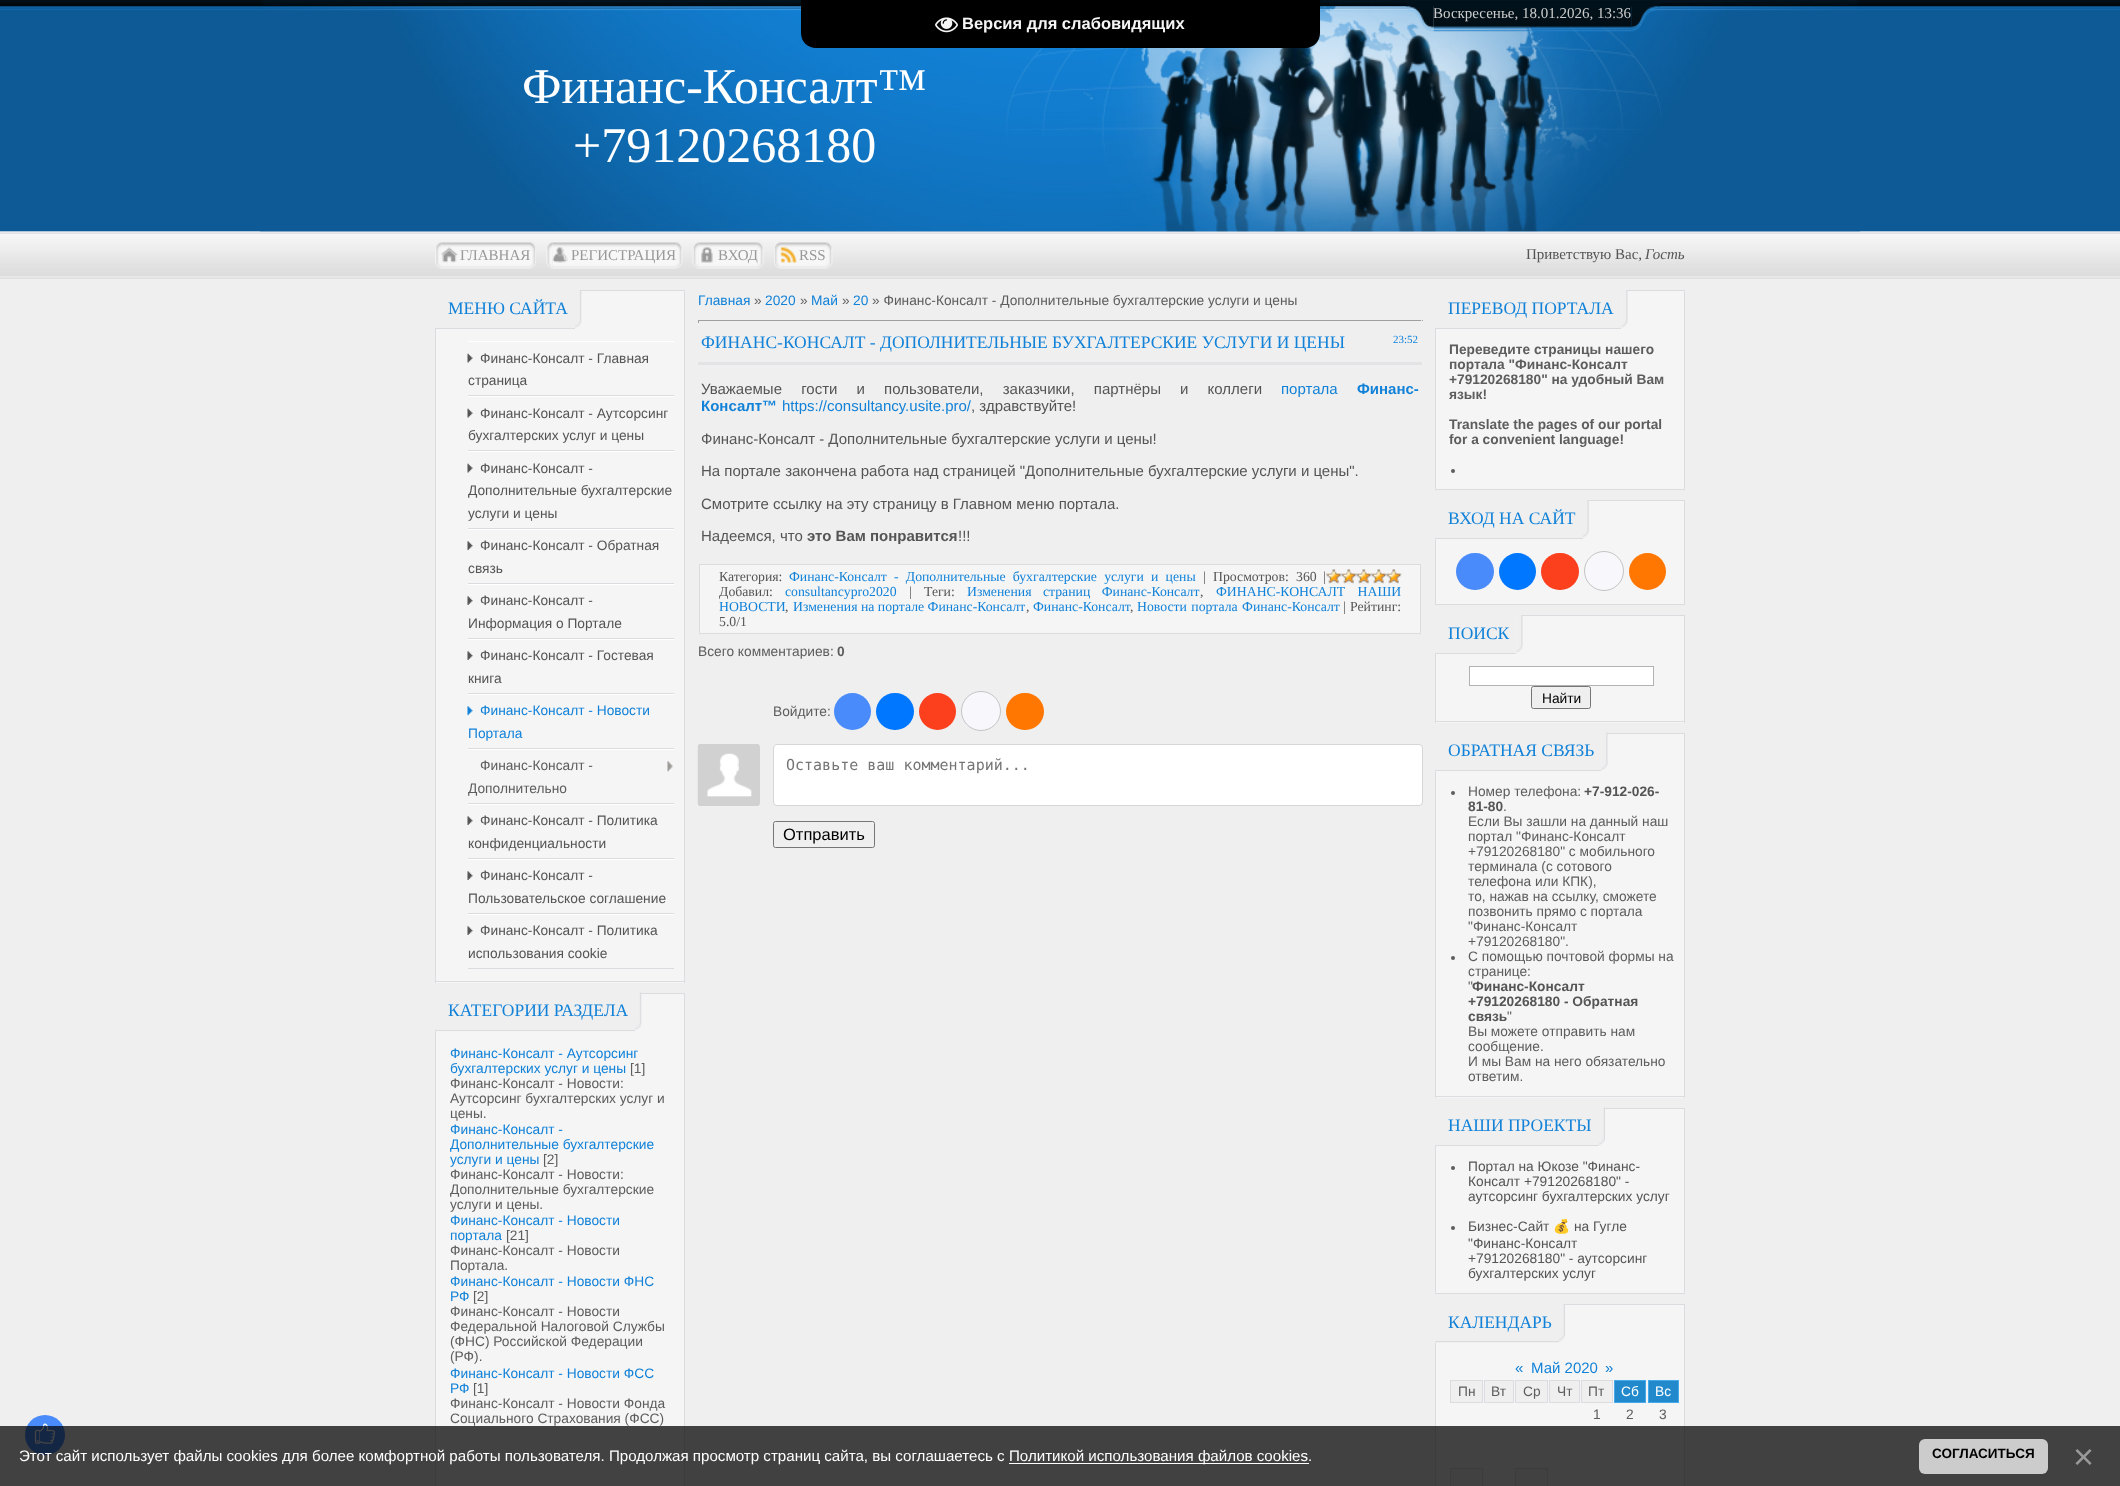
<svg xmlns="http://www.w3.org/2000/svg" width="2120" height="1486">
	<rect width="100%" height="100%" fill="#EFEFEF" />
	<image x="0" y="0" width="2120" height="279" href="assets/img1.png" />
	<image x="260" y="0" width="1600" height="232" href="assets/img2.png" />
	<image x="1006" y="6" width="655" height="226" href="assets/img3.png" />
	<image x="1631" y="3" width="29" height="29" href="assets/img6.png" />
	<image x="1433" y="3" width="199" height="29" href="assets/img5.png" />
	<text x="1433" y="18" font-family="Liberation Serif" font-size="15" fill="#CCCCCC">Воскресенье, 18.01.2026, 13:36</text>
	<image x="1406" y="3" width="28" height="29" href="assets/img4.png" />
	<g font-family="Liberation Serif" font-size="50" fill="#FFFFFF">
		<text x="522" y="103">Финанс-Консалт™</text>
		<text x="573" y="162">+79120268180</text>
	</g>
	<image x="435" y="242" width="7" height="27" href="assets/img7.png" />
	<image x="441" y="242" width="89" height="27" href="assets/img8.png" />
	<image x="441" y="247" width="17" height="16" href="assets/img9.png" />
	<text x="460" y="260" font-family="Liberation Serif" font-size="15" fill="#999999">ГЛАВНАЯ</text>
	<image x="530" y="242" width="6" height="27" href="assets/img10.png" />
	<image x="546" y="242" width="7" height="27" href="assets/img11.png" />
	<image x="552" y="242" width="125" height="27" href="assets/img12.png" />
	<image x="552" y="247" width="16" height="16" href="assets/img13.png" />
	<text x="571" y="260" font-family="Liberation Serif" font-size="15" fill="#999999">РЕГИСТРАЦИЯ</text>
	<image x="676" y="242" width="7" height="27" href="assets/img14.png" />
	<image x="692" y="242" width="7" height="27" href="assets/img15.png" />
	<image x="699" y="242" width="59" height="27" href="assets/img16.png" />
	<image x="701" y="247" width="12" height="16" href="assets/img17.png" />
	<text x="718" y="260" font-family="Liberation Serif" font-size="15" fill="#999999">ВХОД</text>
	<image x="757" y="242" width="7" height="27" href="assets/img18.png" />
	<image x="774" y="242" width="6" height="27" href="assets/img19.png" />
	<image x="780" y="242" width="47" height="27" href="assets/img20.png" />
	<image x="780" y="247" width="17" height="16" href="assets/img21.png" />
	<text x="799" y="260" font-family="Liberation Serif" font-size="15" fill="#999999">RSS</text>
	<image x="826" y="242" width="7" height="27" href="assets/img22.png" />
	<text x="1526" y="259" font-family="Liberation Serif" font-size="15" fill="#555555">Приветствую Вас,</text>
	<text x="1645" y="259" font-family="Liberation Serif" font-size="15" font-style="italic" fill="#555555">Гость</text>
	<rect x="436" y="291" width="248" height="692" fill="#F5F5F5" />
	<rect x="581" y="290" width="104" height="1" fill="#DCDBE0" />
	<rect x="684" y="290" width="1" height="693" fill="#DCDBE0" />
	<rect x="436" y="291" width="139" height="37" fill="#EFEFEF" />
	<rect x="435" y="328" width="140" height="1" fill="#DCDBE0" />
	<text x="448" y="314" font-family="Liberation Serif" font-size="17.5" fill="#1282D8">МЕНЮ САЙТА</text>
	<image x="575" y="290" width="7" height="38" href="assets/img23.png" />
	<rect x="435" y="981" width="250" height="1" fill="#DCDBE0" />
	<rect x="435" y="329" width="1" height="654" fill="#DCDBE0" />
	<rect x="468" y="341" width="206" height="1" fill="#FFFFFF" />
	<rect x="468" y="395" width="206" height="1" fill="#DCDBE0" />
	<image x="467" y="353" width="6" height="10" href="assets/img24.png" />
	<g font-family="Liberation Sans" font-size="13.75" fill="#555555">
		<text x="480" y="363">Финанс-Консалт - Главная</text>
		<text x="468" y="385">страница</text>
	</g>
	<rect x="468" y="396" width="206" height="1" fill="#FFFFFF" />
	<rect x="468" y="450" width="206" height="1" fill="#DCDBE0" />
	<image x="467" y="408" width="6" height="10" href="assets/img24.png" />
	<g font-family="Liberation Sans" font-size="13.75" fill="#555555">
		<text x="480" y="418">Финанс-Консалт - Аутсорсинг</text>
		<text x="468" y="440">бухгалтерских услуг и цены</text>
	</g>
	<rect x="468" y="451" width="206" height="1" fill="#FFFFFF" />
	<rect x="468" y="528" width="206" height="1" fill="#DCDBE0" />
	<image x="467" y="463" width="6" height="10" href="assets/img24.png" />
	<g font-family="Liberation Sans" font-size="13.75" fill="#555555">
		<text x="480" y="473">Финанс-Консалт -</text>
		<text x="468" y="495">Дополнительные бухгалтерские</text>
		<text x="468" y="518">услуги и цены</text>
	</g>
	<rect x="468" y="529" width="206" height="1" fill="#FFFFFF" />
	<rect x="468" y="583" width="206" height="1" fill="#DCDBE0" />
	<image x="467" y="541" width="6" height="9" href="assets/img25.png" />
	<g font-family="Liberation Sans" font-size="13.75" fill="#555555">
		<text x="480" y="550">Финанс-Консалт - Обратная</text>
		<text x="468" y="573">связь</text>
	</g>
	<rect x="468" y="584" width="206" height="1" fill="#FFFFFF" />
	<rect x="468" y="638" width="206" height="1" fill="#DCDBE0" />
	<image x="467" y="596" width="6" height="9" href="assets/img25.png" />
	<g font-family="Liberation Sans" font-size="13.75" fill="#555555">
		<text x="480" y="605">Финанс-Консалт -</text>
		<text x="468" y="628">Информация о Портале</text>
	</g>
	<rect x="468" y="639" width="206" height="1" fill="#FFFFFF" />
	<rect x="468" y="693" width="206" height="1" fill="#DCDBE0" />
	<image x="467" y="651" width="6" height="9" href="assets/img25.png" />
	<g font-family="Liberation Sans" font-size="13.75" fill="#555555">
		<text x="480" y="660">Финанс-Консалт - Гостевая</text>
		<text x="468" y="683">книга</text>
	</g>
	<rect x="468" y="694" width="206" height="1" fill="#FFFFFF" />
	<rect x="468" y="748" width="206" height="1" fill="#DCDBE0" />
	<image x="467" y="706" width="6" height="10" href="assets/img26.png" />
	<g font-family="Liberation Sans" font-size="13.75" fill="#1282D8">
		<text x="480" y="715">Финанс-Консалт - Новости</text>
		<text x="468" y="738">Портала</text>
	</g>
	<rect x="468" y="749" width="206" height="1" fill="#FFFFFF" />
	<rect x="468" y="803" width="206" height="1" fill="#DCDBE0" />
	<text x="480" y="770" font-family="Liberation Sans" font-size="13.75" fill="#5D5D5D">Финанс-Консалт -</text>
	<image x="667" y="761" width="6" height="11" href="assets/img27.png" />
	<text x="468" y="793" font-family="Liberation Sans" font-size="13.75" fill="#5D5D5D">Дополнительно</text>
	<rect x="468" y="804" width="206" height="1" fill="#FFFFFF" />
	<rect x="468" y="858" width="206" height="1" fill="#DCDBE0" />
	<image x="467" y="816" width="6" height="9" href="assets/img25.png" />
	<g font-family="Liberation Sans" font-size="13.75" fill="#555555">
		<text x="480" y="825">Финанс-Консалт - Политика</text>
		<text x="468" y="848">конфиденциальности</text>
	</g>
	<rect x="468" y="859" width="206" height="1" fill="#FFFFFF" />
	<rect x="468" y="913" width="206" height="1" fill="#DCDBE0" />
	<image x="467" y="871" width="6" height="9" href="assets/img25.png" />
	<g font-family="Liberation Sans" font-size="13.75" fill="#555555">
		<text x="480" y="880">Финанс-Консалт -</text>
		<text x="468" y="903">Пользовательское соглашение</text>
	</g>
	<rect x="468" y="914" width="206" height="1" fill="#FFFFFF" />
	<rect x="468" y="968" width="206" height="1" fill="#DCDBE0" />
	<image x="467" y="926" width="6" height="9" href="assets/img25.png" />
	<g font-family="Liberation Sans" font-size="13.75" fill="#555555">
		<text x="480" y="935">Финанс-Консалт - Политика</text>
		<text x="468" y="958">использования cookie</text>
	</g>
	<rect x="436" y="994" width="248" height="492" fill="#F5F5F5" />
	<rect x="641" y="993" width="44" height="1" fill="#DCDBE0" />
	<rect x="684" y="993" width="1" height="493" fill="#DCDBE0" />
	<rect x="436" y="994" width="199" height="36" fill="#EFEFEF" />
	<rect x="435" y="1030" width="200" height="1" fill="#DCDBE0" />
	<text x="448" y="1016" font-family="Liberation Serif" font-size="17.5" fill="#1282D8">КАТЕГОРИИ РАЗДЕЛА</text>
	<image x="635" y="992" width="7" height="38" href="assets/img28.png" />
	<rect x="435" y="1031" width="1" height="455" fill="#DCDBE0" />
	<g font-family="Liberation Sans" font-size="13.75" fill="#1282D8">
		<text x="450" y="1058">Финанс-Консалт - Аутсорсинг</text>
		<text x="450" y="1073">бухгалтерских услуг и цены</text>
	</g>
	<g font-family="Liberation Sans" font-size="13.75" fill="#5D5D5D">
		<text x="630" y="1073">[1]</text>
		<text x="450" y="1088">Финанс-Консалт - Новости:</text>
		<text x="450" y="1103">Аутсорсинг бухгалтерских услуг и</text>
		<text x="450" y="1118">цены.</text>
	</g>
	<g font-family="Liberation Sans" font-size="13.75" fill="#1282D8">
		<text x="450" y="1134">Финанс-Консалт -</text>
		<text x="450" y="1149">Дополнительные бухгалтерские</text>
		<text x="450" y="1164">услуги и цены</text>
	</g>
	<g font-family="Liberation Sans" font-size="13.75" fill="#5D5D5D">
		<text x="543" y="1164">[2]</text>
		<text x="450" y="1179">Финанс-Консалт - Новости:</text>
		<text x="450" y="1194">Дополнительные бухгалтерские</text>
		<text x="450" y="1209">услуги и цены.</text>
	</g>
	<g font-family="Liberation Sans" font-size="13.75" fill="#1282D8">
		<text x="450" y="1225">Финанс-Консалт - Новости</text>
		<text x="450" y="1240">портала</text>
	</g>
	<g font-family="Liberation Sans" font-size="13.75" fill="#5D5D5D">
		<text x="506" y="1240">[21]</text>
		<text x="450" y="1255">Финанс-Консалт - Новости</text>
		<text x="450" y="1270">Портала.</text>
	</g>
	<g font-family="Liberation Sans" font-size="13.75" fill="#1282D8">
		<text x="450" y="1286">Финанс-Консалт - Новости ФНС</text>
		<text x="450" y="1301">РФ</text>
	</g>
	<g font-family="Liberation Sans" font-size="13.75" fill="#5D5D5D">
		<text x="473" y="1301">[2]</text>
		<text x="450" y="1316">Финанс-Консалт - Новости</text>
		<text x="450" y="1331">Федеральной Налоговой Службы</text>
		<text x="450" y="1346">(ФНС) Российской Федерации</text>
		<text x="450" y="1361">(РФ).</text>
	</g>
	<g font-family="Liberation Sans" font-size="13.75" fill="#1282D8">
		<text x="450" y="1378">Финанс-Консалт - Новости ФСС</text>
		<text x="450" y="1393">РФ</text>
	</g>
	<g font-family="Liberation Sans" font-size="13.75" fill="#5D5D5D">
		<text x="473" y="1393">[1]</text>
		<text x="450" y="1408">Финанс-Консалт - Новости Фонда</text>
		<text x="450" y="1423">Социального Страхования (ФСС)</text>
	</g>
	<text x="698" y="305" font-family="Liberation Sans" font-size="13.75" fill="#1282D8">Главная</text>
	<text x="754" y="305" font-family="Liberation Sans" font-size="13.75" fill="#5D5D5D">»</text>
	<text x="765" y="305" font-family="Liberation Sans" font-size="13.75" fill="#1282D8">2020</text>
	<text x="800" y="305" font-family="Liberation Sans" font-size="13.75" fill="#5D5D5D">»</text>
	<text x="811" y="305" font-family="Liberation Sans" font-size="13.75" fill="#1282D8">Май</text>
	<text x="842" y="305" font-family="Liberation Sans" font-size="13.75" fill="#5D5D5D">»</text>
	<text x="853" y="305" font-family="Liberation Sans" font-size="13.75" fill="#1282D8">20</text>
	<text x="872" y="305" font-family="Liberation Sans" font-size="13.75" fill="#5D5D5D">» Финанс-Консалт - Дополнительные бухгалтерские услуги и цены</text>
	<rect x="698" y="320" width="725" height="1" fill="#9F9F9F" />
	<rect x="1421" y="320" width="1" height="3" fill="#EEEEEE" />
	<rect x="698" y="320" width="1" height="3" fill="#9F9F9F" />
	<text x="701" y="348" font-family="Liberation Serif" font-size="17.5" fill="#1282D8">ФИНАНС-КОНСАЛТ - ДОПОЛНИТЕЛЬНЫЕ БУХГАЛТЕРСКИЕ УСЛУГИ И ЦЕНЫ</text>
	<text x="1393" y="343" font-family="Liberation Serif" font-size="11" fill="#1282D8">23:52</text>
	<rect x="698" y="362" width="724" height="3" fill="#E4E4E7" />
	<text x="701" y="394" word-spacing="15" font-family="Liberation Sans" font-size="15" fill="#555555">Уважаемые гости и пользователи, заказчики, партнёры и коллеги</text>
	<text x="1281" y="394" font-family="Liberation Sans" font-size="15" fill="#1282D8">портала</text>
	<g font-family="Liberation Sans" font-size="15" font-weight="700" fill="#1282D8">
		<text x="1357" y="394">Финанс-</text>
		<text x="701" y="411">Консалт™</text>
	</g>
	<text x="782" y="411" font-family="Liberation Sans" font-size="15" fill="#1282D8">https://consultancy.usite.pro/</text>
	<g font-family="Liberation Sans" font-size="15" fill="#555555">
		<text x="971" y="411">, здравствуйте!</text>
		<text x="701" y="444">Финанс-Консалт - Дополнительные бухгалтерские услуги и цены!</text>
		<text x="701" y="476">На портале закончена работа над страницей "Дополнительные бухгалтерские услуги и цены".</text>
		<text x="701" y="509">Смотрите ссылку на эту страницу в Главном меню портала.</text>
		<text x="701" y="541">Надеемся, что</text>
	</g>
	<text x="807" y="541" font-family="Liberation Sans" font-size="15" font-weight="700" fill="#555555">это Вам понравится</text>
	<text x="958" y="541" font-family="Liberation Sans" font-size="15" fill="#555555">!!!</text>
	<rect x="699.5" y="564.5" width="721" height="69" fill="#F5F5F5" stroke="#DCDBE0" />
	<text x="719" y="581" font-family="Liberation Serif" font-size="13.75" fill="#555555">Категория:</text>
	<text x="789" y="581" word-spacing="3.75" font-family="Liberation Serif" font-size="13.75" fill="#1282D8">Финанс-Консалт - Дополнительные бухгалтерские услуги и цены</text>
	<g font-family="Liberation Serif" font-size="13.75" fill="#555555">
		<text x="1203" y="581">|</text>
		<text x="1213" y="581">Просмотров:</text>
		<text x="1296" y="581">360</text>
		<text x="1323" y="581">|</text>
	</g>
	<image x="1326" y="569" width="76" height="15" href="assets/img29.png" />
	<image x="1326" y="569" width="76" height="15" href="assets/img30.png" />
	<text x="719" y="596" font-family="Liberation Serif" font-size="13.75" fill="#555555">Добавил:</text>
	<text x="785" y="596" font-family="Liberation Serif" font-size="13.75" fill="#1282D8">consultancypro2020</text>
	<g font-family="Liberation Serif" font-size="13.75" fill="#555555">
		<text x="909" y="596">|</text>
		<text x="924" y="596">Теги:</text>
	</g>
	<text x="967" y="596" word-spacing="8" font-family="Liberation Serif" font-size="13.75" fill="#1282D8">Изменения страниц Финанс-Консалт</text>
	<text x="1200" y="596" font-family="Liberation Serif" font-size="13.75" fill="#555555">,</text>
	<g font-family="Liberation Serif" font-size="13.75" fill="#1282D8">
		<text x="1216" y="596" word-spacing="9">ФИНАНС-КОНСАЛТ НАШИ</text>
		<text x="719" y="611">НОВОСТИ</text>
	</g>
	<text x="785" y="611" font-family="Liberation Serif" font-size="13.75" fill="#555555">,</text>
	<text x="793" y="611" font-family="Liberation Serif" font-size="13.75" fill="#1282D8">Изменения на портале Финанс-Консалт</text>
	<text x="1026" y="611" font-family="Liberation Serif" font-size="13.75" fill="#555555">,</text>
	<text x="1033" y="611" font-family="Liberation Serif" font-size="13.75" fill="#1282D8">Финанс-Консалт</text>
	<text x="1130" y="611" font-family="Liberation Serif" font-size="13.75" fill="#555555">,</text>
	<text x="1137" y="611" word-spacing="1" font-family="Liberation Serif" font-size="13.75" fill="#1282D8">Новости портала Финанс-Консалт</text>
	<g font-family="Liberation Serif" font-size="13.75" fill="#555555">
		<text x="1343" y="611">|</text>
		<text x="1350" y="611">Рейтинг:</text>
		<text x="719" y="626">5.0/1</text>
	</g>
	<text x="698" y="656" font-family="Liberation Sans" font-size="13.75" fill="#5D5D5D">Всего комментариев:</text>
	<text x="837" y="656" font-family="Liberation Sans" font-size="13.75" font-weight="700" fill="#5D5D5D">0</text>
	<text x="773" y="716" font-family="Liberation Sans" font-size="13.75" fill="#5D5D5D">Войдите:</text>
	<circle cx="852.5" cy="711.5" r="18.5" fill="#498BFA" />
	<rect x="876" y="693" width="38" height="37" rx="18.5" fill="#0077FF" />
	<circle cx="937.5" cy="711.5" r="18.5" fill="#FC3F1D" />
	<circle cx="981" cy="711" r="19.5" fill="#F8F8FC" stroke="#C4C4C4" />
	<rect x="1006" y="693" width="38" height="37" rx="18.5" fill="#FF7700" />
	<image x="697" y="744" width="63" height="62" href="assets/img31.png" />
	<rect x="773.5" y="744.5" width="649" height="61" rx="3.5" fill="#FFFFFF" stroke="#D6D6D6" />
	<text x="786" y="770" font-family="DejaVu Sans Mono" font-size="15" fill="#757575">Оставьте ваш комментарий...</text>
	<rect x="773.5" y="821.5" width="101" height="26" rx="2" fill="none" stroke="#767676" />
	<text x="783" y="840" font-family="Liberation Sans" font-size="16.5" fill="#000000">Отправить</text>
	<rect x="1436" y="291" width="248" height="198" fill="#F5F5F5" />
	<rect x="1621" y="290" width="64" height="1" fill="#DCDBE0" />
	<rect x="1684" y="290" width="1" height="200" fill="#DCDBE0" />
	<rect x="1436" y="291" width="185" height="37" fill="#EFEFEF" />
	<rect x="1435" y="328" width="186" height="1" fill="#DCDBE0" />
	<text x="1448" y="314" font-family="Liberation Serif" font-size="17.5" fill="#1282D8">ПЕРЕВОД ПОРТАЛА</text>
	<image x="1621" y="290" width="7" height="38" href="assets/img32.png" />
	<rect x="1435" y="489" width="250" height="1" fill="#DCDBE0" />
	<rect x="1435" y="329" width="1" height="161" fill="#DCDBE0" />
	<g font-family="Liberation Sans" font-size="13.75" font-weight="700" fill="#5D5D5D">
		<text x="1449" y="354">Переведите страницы нашего</text>
		<text x="1449" y="369">портала "Финанс-Консалт</text>
		<text x="1449" y="384">+79120268180" на удобный Вам</text>
		<text x="1449" y="399">язык!</text>
		<text x="1449" y="429">Translate the pages of our portal</text>
		<text x="1449" y="444">for a convenient language!</text>
	</g>
	<circle cx="1453" cy="471" r="2" fill="#5D5D5D" />
	<rect x="1436" y="501" width="248" height="103" fill="#F5F5F5" />
	<rect x="1588" y="500" width="97" height="1" fill="#DCDBE0" />
	<rect x="1684" y="500" width="1" height="105" fill="#DCDBE0" />
	<rect x="1436" y="501" width="147" height="37" fill="#EFEFEF" />
	<rect x="1435" y="538" width="148" height="1" fill="#DCDBE0" />
	<text x="1448" y="524" font-family="Liberation Serif" font-size="17.5" fill="#1282D8">ВХОД НА САЙТ</text>
	<image x="1582" y="500" width="7" height="38" href="assets/img33.png" />
	<rect x="1435" y="604" width="250" height="1" fill="#DCDBE0" />
	<rect x="1435" y="539" width="1" height="66" fill="#DCDBE0" />
	<rect x="1456" y="553" width="38" height="37" rx="18.5" fill="#498BFA" />
	<circle cx="1517.5" cy="571.5" r="18.5" fill="#0077FF" />
	<rect x="1541" y="553" width="38" height="37" rx="18.5" fill="#FC3F1D" />
	<circle cx="1604" cy="571" r="19.5" fill="#F8F8FC" stroke="#C4C4C4" />
	<circle cx="1647.5" cy="571.5" r="18.5" fill="#FF7700" />
	<rect x="1436" y="616" width="248" height="107" fill="#F5F5F5" />
	<rect x="1516" y="615" width="169" height="1" fill="#DCDBE0" />
	<rect x="1684" y="615" width="1" height="108" fill="#DCDBE0" />
	<rect x="1436" y="616" width="80" height="37" fill="#EFEFEF" />
	<rect x="1435" y="653" width="81" height="1" fill="#DCDBE0" />
	<text x="1448" y="639" font-family="Liberation Serif" font-size="17.5" fill="#1282D8">ПОИСК</text>
	<image x="1516" y="615" width="7" height="38" href="assets/img34.png" />
	<rect x="1435" y="721" width="250" height="1" fill="#DCDBE0" />
	<rect x="1435" y="654" width="1" height="69" fill="#DCDBE0" />
	<rect x="1469.5" y="666.5" width="184" height="19" fill="#FFFFFF" stroke="#B2B2B2" />
	<rect x="1531.5" y="686.5" width="59" height="22" rx="2" fill="#EFEFEF" stroke="#767676" />
	<text x="1542" y="703" font-family="Liberation Sans" font-size="13.75" fill="#000000">Найти</text>
	<rect x="1436" y="734" width="248" height="364" fill="#F5F5F5" />
	<rect x="1601" y="733" width="84" height="1" fill="#DCDBE0" />
	<rect x="1684" y="733" width="1" height="365" fill="#DCDBE0" />
	<rect x="1436" y="734" width="165" height="36" fill="#EFEFEF" />
	<rect x="1435" y="770" width="166" height="1" fill="#DCDBE0" />
	<text x="1448" y="756" font-family="Liberation Serif" font-size="17.5" fill="#1282D8">ОБРАТНАЯ СВЯЗЬ</text>
	<image x="1601" y="732" width="7" height="38" href="assets/img35.png" />
	<rect x="1435" y="1096" width="250" height="1" fill="#DCDBE0" />
	<rect x="1435" y="771" width="1" height="327" fill="#DCDBE0" />
	<circle cx="1453" cy="793" r="2" fill="#5D5D5D" />
	<text x="1468" y="796" font-family="Liberation Sans" font-size="13.75" fill="#5D5D5D">Номер телефона:</text>
	<g font-family="Liberation Sans" font-size="13.75" font-weight="700" fill="#555555">
		<text x="1584" y="796">+7-912-026-</text>
		<text x="1468" y="811">81-80</text>
	</g>
	<g font-family="Liberation Sans" font-size="13.75" fill="#5D5D5D">
		<text x="1503" y="811">.</text>
		<text x="1468" y="826">Если Вы зашли на данный наш</text>
		<text x="1468" y="841">портал "Финанс-Консалт</text>
		<text x="1468" y="856">+79120268180" с мобильного</text>
		<text x="1468" y="871">терминала (с сотового</text>
		<text x="1468" y="886">телефона или КПК),</text>
		<text x="1468" y="901">то, нажав на ссылку, сможете</text>
		<text x="1468" y="916">позвонить прямо с портала</text>
		<text x="1468" y="931">"Финанс-Консалт</text>
		<text x="1468" y="946">+79120268180".</text>
	</g>
	<circle cx="1453" cy="958" r="2" fill="#5D5D5D" />
	<g font-family="Liberation Sans" font-size="13.75" fill="#5D5D5D">
		<text x="1468" y="961">С помощью почтовой формы на</text>
		<text x="1468" y="976">странице:</text>
		<text x="1468" y="991">"</text>
	</g>
	<g font-family="Liberation Sans" font-size="13.75" font-weight="700" fill="#555555">
		<text x="1472" y="991">Финанс-Консалт</text>
		<text x="1468" y="1006">+79120268180 - Обратная</text>
		<text x="1468" y="1021">связь</text>
	</g>
	<g font-family="Liberation Sans" font-size="13.75" fill="#5D5D5D">
		<text x="1507" y="1021">"</text>
		<text x="1468" y="1036">Вы можете отправить нам</text>
		<text x="1468" y="1051">сообщение.</text>
		<text x="1468" y="1066">И мы Вам на него обязательно</text>
		<text x="1468" y="1081">ответим.</text>
	</g>
	<rect x="1436" y="1109" width="248" height="184" fill="#F5F5F5" />
	<rect x="1605" y="1108" width="80" height="1" fill="#DCDBE0" />
	<rect x="1684" y="1108" width="1" height="186" fill="#DCDBE0" />
	<rect x="1436" y="1109" width="163" height="36" fill="#EFEFEF" />
	<rect x="1435" y="1145" width="164" height="1" fill="#DCDBE0" />
	<text x="1448" y="1131" font-family="Liberation Serif" font-size="17.5" fill="#1282D8">НАШИ ПРОЕКТЫ</text>
	<image x="1599" y="1107" width="6" height="38" href="assets/img36.png" />
	<rect x="1435" y="1293" width="250" height="1" fill="#DCDBE0" />
	<rect x="1435" y="1146" width="1" height="148" fill="#DCDBE0" />
	<circle cx="1453" cy="1168" r="2" fill="#5D5D5D" />
	<g font-family="Liberation Sans" font-size="13.75" fill="#555555">
		<text x="1468" y="1171">Портал на Юкозе "Финанс-</text>
		<text x="1468" y="1186">Консалт +79120268180" -</text>
		<text x="1468" y="1201">аутсорсинг бухгалтерских услуг</text>
	</g>
	<circle cx="1453" cy="1228" r="2" fill="#5D5D5D" />
	<text x="1468" y="1231" font-family="Liberation Sans" font-size="13.75" fill="#555555">Бизнес-Сайт</text>
	<text x="1553" y="1231" font-family="Noto Color Emoji" font-size="13.75" fill="#555555">💰</text>
	<g font-family="Liberation Sans" font-size="13.75" fill="#555555">
		<text x="1574" y="1231">на Гугле</text>
		<text x="1468" y="1248">"Финанс-Консалт</text>
		<text x="1468" y="1263">+79120268180" - аутсорсинг</text>
		<text x="1468" y="1278">бухгалтерских услуг</text>
	</g>
	<rect x="1436" y="1305" width="248" height="181" fill="#F5F5F5" />
	<rect x="1565" y="1304" width="120" height="1" fill="#DCDBE0" />
	<rect x="1684" y="1304" width="1" height="182" fill="#DCDBE0" />
	<rect x="1436" y="1305" width="123" height="38" fill="#EFEFEF" />
	<rect x="1435" y="1341" width="124" height="1" fill="#DCDBE0" />
	<text x="1448" y="1328" font-family="Liberation Serif" font-size="17.5" fill="#1282D8">КАЛЕНДАРЬ</text>
	<image x="1559" y="1303" width="6" height="39" href="assets/img37.png" />
	<rect x="1435" y="1343" width="1" height="143" fill="#DCDBE0" />
	<g font-family="Liberation Sans" font-size="15" fill="#1282D8">
		<text x="1515" y="1373">«</text>
		<text x="1531" y="1373">Май 2020</text>
		<text x="1605" y="1373">»</text>
	</g>
	<rect x="1450.5" y="1380.5" width="32" height="22" fill="#EFEFEF" stroke="#DCDBE0" />
	<text x="1458" y="1396" font-family="Liberation Sans" font-size="13.75" fill="#5D5D5D">Пн</text>
	<rect x="1484.5" y="1380.5" width="29" height="22" fill="#EFEFEF" stroke="#DCDBE0" />
	<text x="1491" y="1396" font-family="Liberation Sans" font-size="13.75" fill="#5D5D5D">Вт</text>
	<rect x="1515.5" y="1380.5" width="32" height="22" fill="#EFEFEF" stroke="#DCDBE0" />
	<text x="1523" y="1396" font-family="Liberation Sans" font-size="13.75" fill="#5D5D5D">Ср</text>
	<rect x="1549.5" y="1380.5" width="30" height="22" fill="#EFEFEF" stroke="#DCDBE0" />
	<text x="1557" y="1396" font-family="Liberation Sans" font-size="13.75" fill="#5D5D5D">Чт</text>
	<rect x="1581.5" y="1380.5" width="31" height="22" fill="#EFEFEF" stroke="#DCDBE0" />
	<text x="1588" y="1396" font-family="Liberation Sans" font-size="13.75" fill="#5D5D5D">Пт</text>
	<rect x="1614.5" y="1380.5" width="31" height="22" fill="#228ACC" stroke="#46AAEA" />
	<text x="1621" y="1396" font-family="Liberation Sans" font-size="13.75" fill="#FFFFFF">Сб</text>
	<rect x="1648.5" y="1380.5" width="30" height="22" fill="#228ACC" stroke="#46AAEA" />
	<text x="1655" y="1396" font-family="Liberation Sans" font-size="13.75" fill="#FFFFFF">Вс</text>
	<g font-family="Liberation Sans" font-size="13.75" fill="#5D5D5D">
		<text x="1593" y="1419">1</text>
		<text x="1626" y="1419">2</text>
		<text x="1659" y="1419">3</text>
	</g>
	<rect x="1450.5" y="1468.5" width="32" height="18" fill="#EFEFEF" stroke="#DCDBE0" />
	<rect x="1515.5" y="1468.5" width="32" height="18" fill="#EFEFEF" stroke="#DCDBE0" />
	<path d="M801 0H1320V33C1320 41.5 1313.5 48 1305 48H816C807.5 48 801 41.5 801 33Z" fill="#000000" />
	<image x="935" y="17" width="23" height="16" href="assets/img38.png" />
	<text x="962" y="29" font-family="Liberation Sans" font-size="16.5" font-weight="700" fill="#F5F5F5">Версия для слабовидящих</text>
	<circle cx="45" cy="1435" r="20" fill="#498BFA" />
	<image x="34" y="1423" width="22" height="21" href="assets/img39.png" />
	<rect x="0" y="1426" width="2120" height="60" fill="#000000" fill-opacity="0.73" />
	<text x="19" y="1461" font-family="Liberation Sans" font-size="15.12" fill="#FFFFFF">Этот сайт использует файлы cookies для более комфортной работы пользователя. Продолжая просмотр страниц сайта, вы соглашаетесь с</text>
	<rect x="1009" y="1463" width="300" height="1" fill="#FFFFFF" />
	<text x="1009" y="1461" font-family="Liberation Sans" font-size="15.12" fill="#FFFFFF">Политикой использования файлов cookies.</text>
	<rect x="1919" y="1439" width="129" height="35" rx="6" fill="#CCCCCC" />
	<text x="1932" y="1458" font-family="Liberation Sans" font-size="13.5" font-weight="700" fill="#000000">СОГЛАСИТЬСЯ</text>
	<text x="2073" y="1469" font-family="Liberation Sans" font-size="36" fill="#999999">×</text>
</svg>
